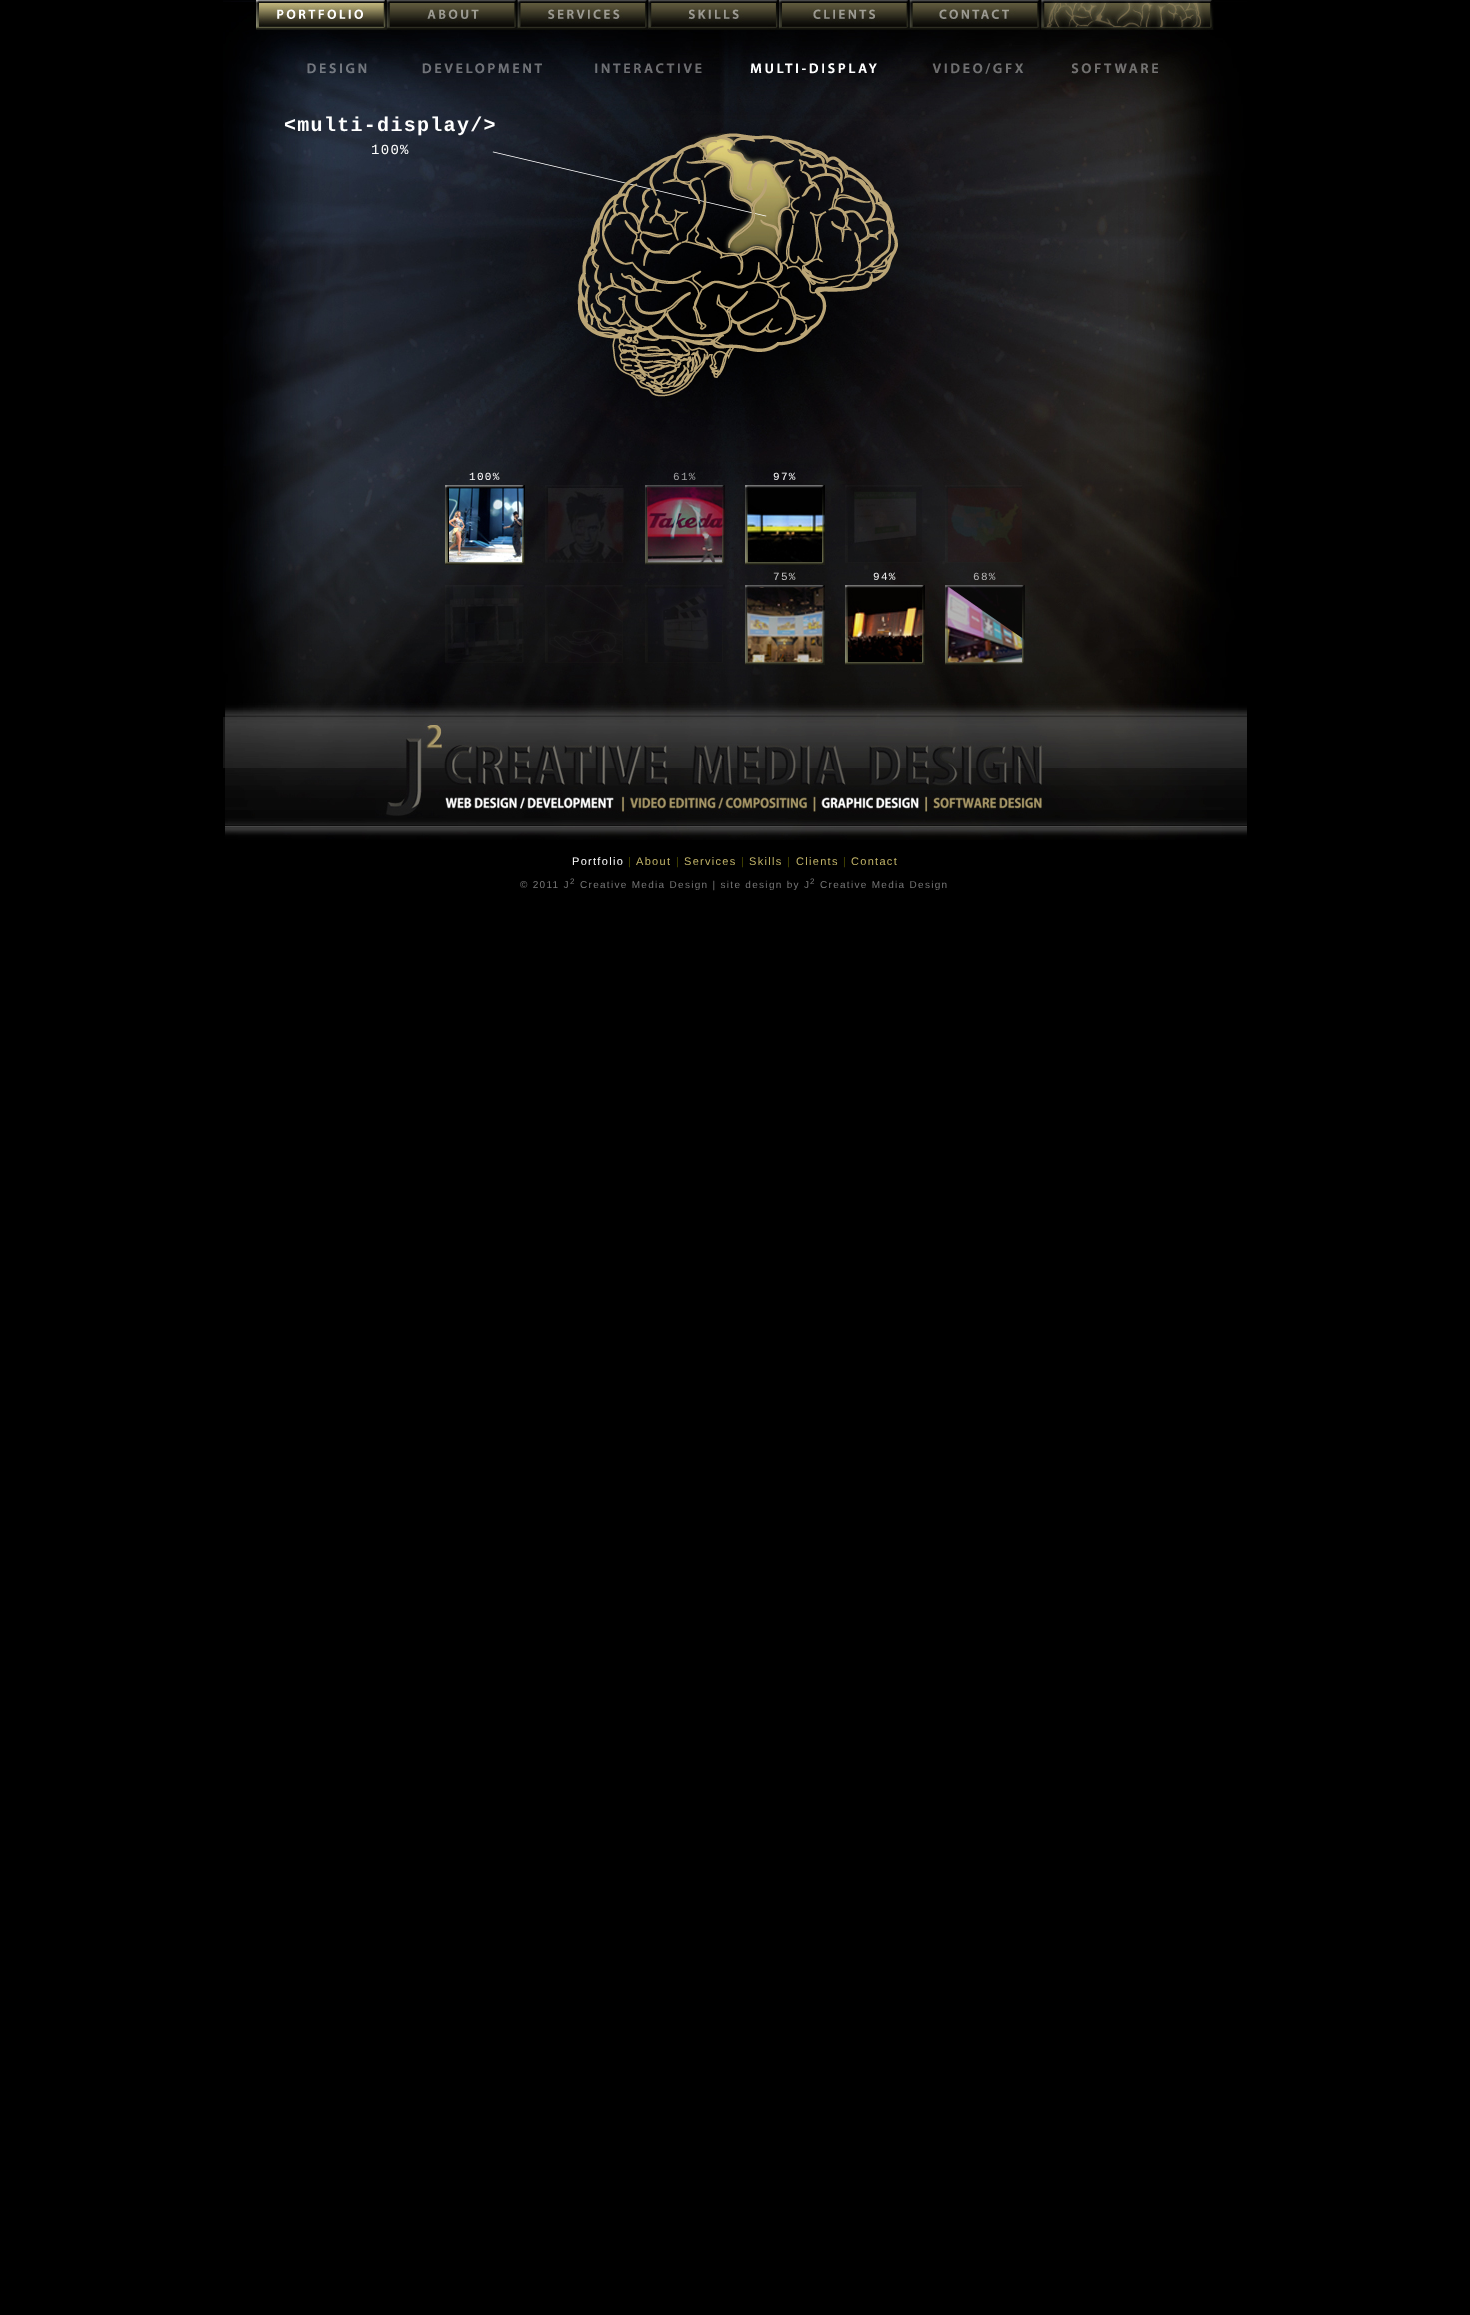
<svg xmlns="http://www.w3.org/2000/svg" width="1470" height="2315">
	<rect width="100%" height="100%" fill="#000000" />
	<image x="223" y="0" width="1024" height="840" href="assets/img1.png" />
	<image x="387" y="0" width="827" height="30" href="assets/img2.png" />
	<image x="256" y="0" width="131" height="30" href="assets/img3.png" />
	<image x="307" y="63" width="60" height="11" href="assets/img4.png" />
	<image x="422" y="63" width="120" height="11" href="assets/img5.png" />
	<image x="595" y="63" width="107" height="11" href="assets/img6.png" />
	<image x="750" y="63" width="127" height="11" href="assets/img7.png" />
	<image x="932" y="63" width="92" height="11" href="assets/img8.png" />
	<image x="1071" y="63" width="87" height="11" href="assets/img9.png" />
	<text x="284" y="131" font-family="Liberation Mono" font-size="20" font-weight="700" letter-spacing="1.3" fill="#FFFFFF">&lt;multi-display/&gt;</text>
	<text x="371" y="154" font-family="Liberation Mono" font-size="14" letter-spacing="1.3" fill="#FFFFFF">100%</text>
	<image x="697" y="133" width="97" height="123" href="assets/img11.png" />
	<image x="492" y="151" width="275" height="66" href="assets/img12.png" />
	<image x="577" y="133" width="321" height="264" href="assets/img10.png" />
	<text x="469" y="480" font-family="Liberation Mono" font-size="11" letter-spacing="1.3" fill="#FFFFFF">100%</text>
	<image x="445" y="485" width="80" height="80" href="assets/img13.png" />
	<text x="673" y="480" font-family="Liberation Mono" font-size="11" letter-spacing="1.3" fill="#A1A1A3">61%</text>
	<image x="645" y="485" width="80" height="80" href="assets/img14.png" />
	<text x="773" y="480" font-family="Liberation Mono" font-size="11" letter-spacing="1.3" fill="#F8F8F8">97%</text>
	<image x="745" y="485" width="80" height="80" href="assets/img15.png" />
	<image x="545" y="485" width="79" height="78" href="assets/img16.png" />
	<image x="845" y="485" width="77" height="78" href="assets/img17.png" />
	<image x="945" y="485" width="77" height="78" href="assets/img18.png" />
	<text x="773" y="580" font-family="Liberation Mono" font-size="11" letter-spacing="1.3" fill="#C4C4C4">75%</text>
	<image x="745" y="585" width="80" height="80" href="assets/img19.png" />
	<text x="873" y="580" font-family="Liberation Mono" font-size="11" letter-spacing="1.3" fill="#F1F1F1">94%</text>
	<image x="845" y="585" width="80" height="80" href="assets/img20.png" />
	<text x="973" y="580" font-family="Liberation Mono" font-size="11" letter-spacing="1.3" fill="#B7B6B6">68%</text>
	<image x="945" y="585" width="80" height="80" href="assets/img21.png" />
	<image x="445" y="585" width="79" height="78" href="assets/img22.png" />
	<image x="545" y="585" width="78" height="78" href="assets/img23.png" />
	<image x="645" y="585" width="78" height="78" href="assets/img24.png" />
	<text x="572" y="865" font-family="Liberation Sans" font-size="11" letter-spacing="1.3" fill="#FFFFFF">Portfolio</text>
	<text x="628" y="865" font-family="Liberation Sans" font-size="11" letter-spacing="1.3" fill="#444400">|</text>
	<text x="636" y="865" font-family="Liberation Sans" font-size="11" letter-spacing="1.3" fill="#C1B368">About</text>
	<text x="676" y="865" font-family="Liberation Sans" font-size="11" letter-spacing="1.3" fill="#444400">|</text>
	<text x="684" y="865" font-family="Liberation Sans" font-size="11" letter-spacing="1.3" fill="#C1B368">Services</text>
	<text x="741" y="865" font-family="Liberation Sans" font-size="11" letter-spacing="1.3" fill="#444400">|</text>
	<text x="749" y="865" font-family="Liberation Sans" font-size="11" letter-spacing="1.3" fill="#C1B368">Skills</text>
	<text x="787" y="865" font-family="Liberation Sans" font-size="11" letter-spacing="1.3" fill="#444400">|</text>
	<text x="796" y="865" font-family="Liberation Sans" font-size="11" letter-spacing="1.3" fill="#C1B368">Clients</text>
	<text x="843" y="865" font-family="Liberation Sans" font-size="11" letter-spacing="1.3" fill="#444400">|</text>
	<text x="851" y="865" font-family="Liberation Sans" font-size="11" letter-spacing="1.3" fill="#C1B368">Contact</text>
	<text x="520" y="888" font-family="Liberation Sans" font-size="10" letter-spacing="1.3" fill="#777777">© 2011 J</text>
	<text x="570" y="884" font-family="Liberation Sans" font-size="8" letter-spacing="1.3" fill="#777777">2</text>
	<text x="580" y="888" font-family="Liberation Sans" font-size="10" letter-spacing="1.3" fill="#777777">Creative Media Design | site design by J</text>
	<text x="810" y="884" font-family="Liberation Sans" font-size="8" letter-spacing="1.3" fill="#777777">2</text>
	<text x="820" y="888" font-family="Liberation Sans" font-size="10" letter-spacing="1.3" fill="#777777">Creative Media Design</text>
</svg>
